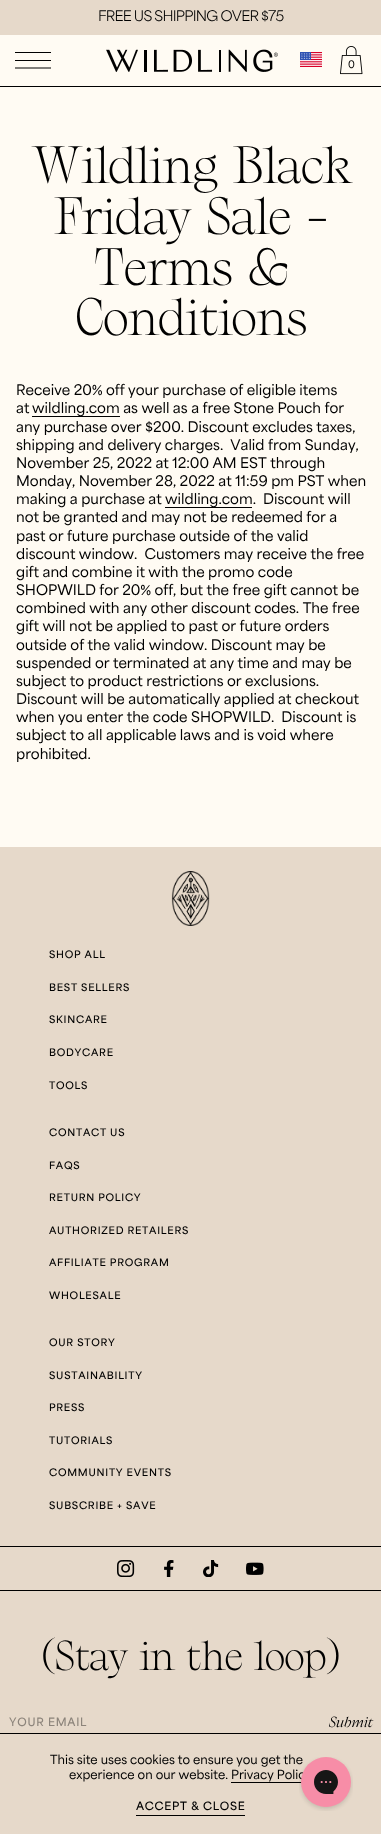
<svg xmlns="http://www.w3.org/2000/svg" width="381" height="1834">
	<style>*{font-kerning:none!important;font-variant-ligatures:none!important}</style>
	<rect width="100%" height="100%" fill="#FFFBF3" />
	<rect x="0" y="0" width="381" height="35" fill="#E6D9CA" />
	<text x="98" y="21" font-family="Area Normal" font-size="13.7" letter-spacing="-0.75" fill="#000000">FREE US SHIPPING OVER $75</text>
	<rect x="0" y="86" width="381" height="1" fill="#000000" />
	<path d="M15 52H51V53H15ZM15 60H51V61H15ZM15 67.5H51V68.5H15Z" fill="#000000" />
	<image x="106" y="49" width="172" height="23" href="assets/img1.png" />
	<image x="300" y="52" width="22" height="15" href="assets/img2.png" />
	<image x="340" y="46" width="23" height="29" href="assets/img3.png" />
	<text x="348" y="68" font-family="Area Normal" font-size="9.75" font-weight="600" fill="#000000">0</text>
	<g font-family="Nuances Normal" font-size="49" font-weight="300" letter-spacing="-0.75" fill="#000000">
		<text x="32" y="183">Wildling Black</text>
		<text x="54" y="234">Friday Sale -</text>
		<text x="94" y="285">Terms &amp;</text>
		<text x="76" y="335">Conditions</text>
	</g>
	<g font-family="Area Normal" font-size="13.7" font-weight="600" fill="#000000">
		<text x="16" y="395">Receive 20% off your purchase of eligible items</text>
		<text x="16" y="413">at</text>
	</g>
	<rect x="32" y="416" width="88" height="1" fill="#000000" />
	<g font-family="Area Normal" font-size="13.7" font-weight="600" fill="#000000">
		<text x="32" y="413">wildling.com as well as a free Stone Pouch for</text>
		<text x="16" y="432">any purchase over $200. Discount excludes taxes,</text>
		<text x="16" y="450" xml:space="preserve">shipping and delivery charges.  Valid from Sunday,</text>
		<text x="16" y="468">November 25, 2022 at 12:00 AM EST through</text>
		<text x="16" y="486">Monday, November 28, 2022 at 11:59 pm PST when</text>
		<text x="16" y="504">making a purchase at</text>
	</g>
	<rect x="165" y="507" width="87" height="1" fill="#000000" />
	<g font-family="Area Normal" font-size="13.7" font-weight="600" fill="#000000">
		<text x="165" y="504" xml:space="preserve">wildling.com.  Discount will</text>
		<text x="16" y="522">not be granted and may not be redeemed for a</text>
		<text x="16" y="541">past or future purchase outside of the valid</text>
		<text x="16" y="559" xml:space="preserve">discount window.  Customers may receive the free</text>
		<text x="16" y="577">gift and combine it with the promo code</text>
		<text x="16" y="595">SHOPWILD for 20% off, but the free gift cannot be</text>
		<text x="16" y="613">combined with any other discount codes. The free</text>
		<text x="16" y="631">gift will not be applied to past or future orders</text>
		<text x="16" y="650">outside of the valid window. Discount may be</text>
		<text x="16" y="668">suspended or terminated at any time and may be</text>
		<text x="16" y="686">subject to product restrictions or exclusions.</text>
		<text x="16" y="704">Discount will be automatically applied at checkout</text>
		<text x="16" y="722" xml:space="preserve">when you enter the code SHOPWILD.  Discount is</text>
		<text x="16" y="740">subject to all applicable laws and is void where</text>
		<text x="16" y="759">prohibited.</text>
	</g>
	<rect x="0" y="847" width="381" height="886" fill="#E6D9CA" />
	<image x="171" y="871" width="39" height="55" href="assets/img4.png" />
	<g font-family="Area Normal" font-size="9.75" font-weight="700" letter-spacing="0.75" fill="#000000">
		<text x="49" y="958">SHOP ALL</text>
		<text x="49" y="991">BEST SELLERS</text>
		<text x="49" y="1023">SKINCARE</text>
		<text x="49" y="1056">BODYCARE</text>
		<text x="49" y="1089">TOOLS</text>
		<text x="49" y="1136">CONTACT US</text>
		<text x="49" y="1169">FAQS</text>
		<text x="49" y="1201">RETURN POLICY</text>
		<text x="49" y="1234">AUTHORIZED RETAILERS</text>
		<text x="49" y="1266">AFFILIATE PROGRAM</text>
		<text x="49" y="1299">WHOLESALE</text>
		<text x="49" y="1346">OUR STORY</text>
		<text x="49" y="1379">SUSTAINABILITY</text>
		<text x="49" y="1411">PRESS</text>
		<text x="49" y="1444">TUTORIALS</text>
		<text x="49" y="1476">COMMUNITY EVENTS</text>
		<text x="49" y="1509">SUBSCRIBE + SAVE</text>
	</g>
	<rect x="0" y="1546" width="381" height="1" fill="#000000" />
	<rect x="0" y="1590" width="381" height="1" fill="#000000" />
	<image x="117" y="1560" width="18" height="17" href="assets/img5.png" />
	<image x="164" y="1560" width="10" height="17" href="assets/img6.png" />
	<image x="203" y="1560" width="16" height="17" href="assets/img7.png" />
	<image x="246" y="1562" width="18" height="13" href="assets/img8.png" />
	<text x="42" y="1670" font-family="Nuances Normal" font-size="39" font-weight="300" letter-spacing="-0.75" fill="#000000">(Stay in the loop)</text>
	<text x="329" y="1727" font-family="Nuances Normal" font-size="13.7" font-style="italic" fill="#000000">Submit</text>
	<rect x="328" y="1724" width="1" height="3" fill="#E6D9CA" />
	<text x="9" y="1726" font-family="Area Normal" font-size="10.75" font-weight="700" letter-spacing="0.75" fill="#8C847B">YOUR EMAIL</text>
	<rect x="0" y="1734" width="381" height="100" fill="#E6D9CA" />
	<rect x="0" y="1733" width="381" height="1" fill="#000000" />
	<g font-family="Area Normal" font-size="11.75" font-weight="600" fill="#000000">
		<text x="50" y="1764">This site uses cookies to ensure you get the</text>
		<text x="69" y="1779">experience on our website. Privacy Polic</text>
	</g>
	<rect x="231" y="1782" width="71" height="1" fill="#000000" />
	<text x="136" y="1810" font-family="Area Normal" font-size="10.75" font-weight="700" letter-spacing="0.75" fill="#000000">ACCEPT &amp; CLOSE</text>
	<rect x="136" y="1815" width="109" height="1" fill="#000000" />
	<image x="299" y="1757" width="54" height="54" href="assets/img9.png" />
</svg>
